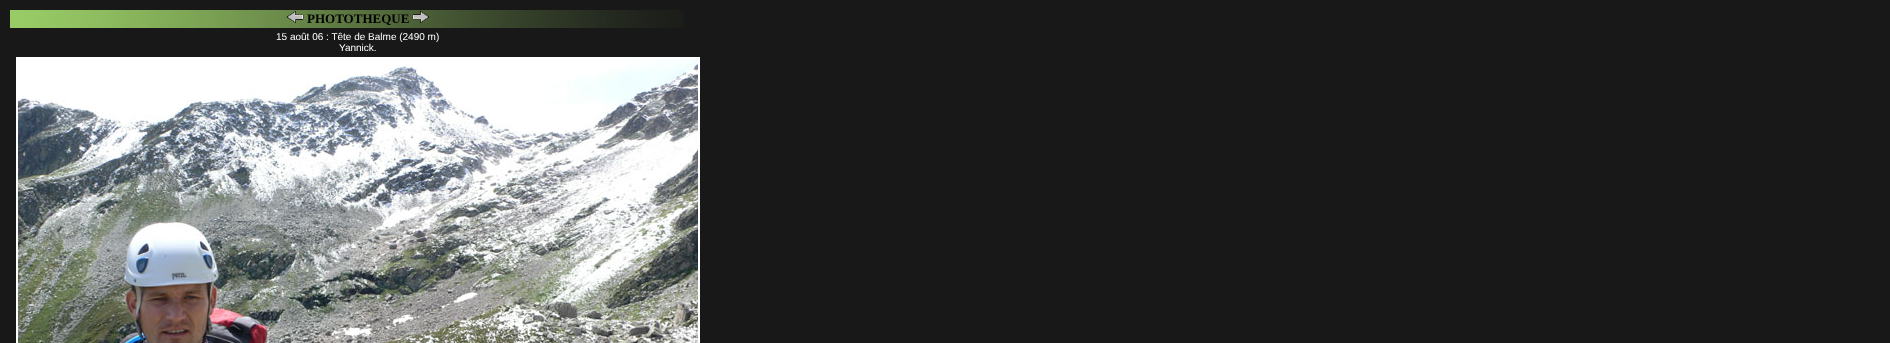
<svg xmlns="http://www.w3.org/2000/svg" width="1890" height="343">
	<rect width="100%" height="100%" fill="#181818" />
	<image x="10" y="10" width="674" height="18" href="assets/img1.png" />
	<image x="286" y="11" width="18" height="12" href="assets/img2.png" />
	<text x="307" y="23" font-family="Liberation Serif" font-size="13" font-weight="700" fill="#000000">PHOTOTHEQUE</text>
	<image x="412" y="11" width="18" height="12" href="assets/img3.png" />
	<g font-family="Liberation Sans" font-size="10" fill="#FFFFFF">
		<text x="276" y="40">15 août 06 : Tête de Balme (2490 m)</text>
		<text x="339" y="51">Yannick.</text>
	</g>
	<rect x="17" y="58" width="682" height="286" fill="none" stroke="#FFFFFF" stroke-width="2" />
	<image x="18" y="59" width="680" height="284" href="assets/img4.png" />
</svg>
